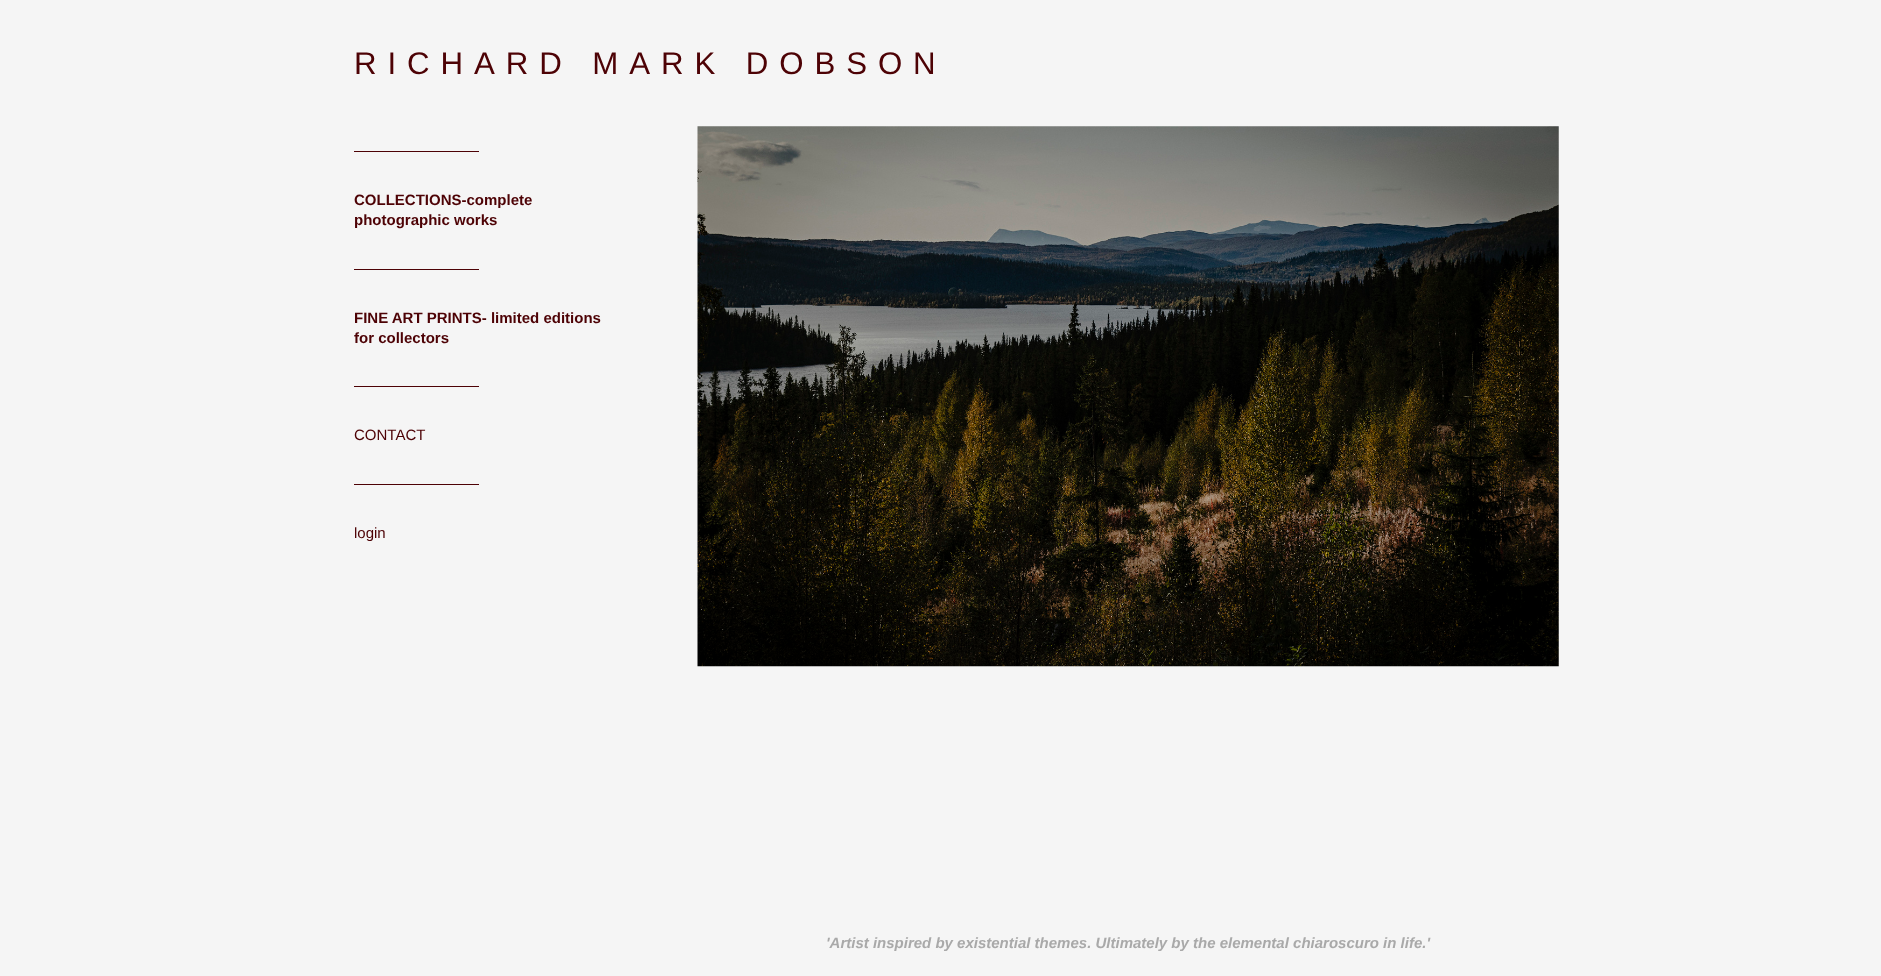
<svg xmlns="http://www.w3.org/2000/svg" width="1881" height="976">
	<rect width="100%" height="100%" fill="#F5F5F5" />
	<text x="354" y="74" font-family="Liberation Sans" font-size="31.25" letter-spacing="10.9" fill="#4D0205">RICHARD MARK DOBSON</text>
	<rect x="354" y="151" width="125" height="1" fill="#4D0205" />
	<g font-family="Liberation Sans" font-size="15" font-weight="700" fill="#4D0205">
		<text x="354" y="205">COLLECTIONS-complete</text>
		<text x="354" y="225">photographic works</text>
	</g>
	<rect x="354" y="269" width="125" height="1" fill="#4D0205" />
	<g font-family="Liberation Sans" font-size="15" font-weight="700" fill="#4D0205">
		<text x="354" y="323">FINE ART PRINTS- limited editions</text>
		<text x="354" y="343">for collectors</text>
	</g>
	<rect x="354" y="386" width="125" height="1" fill="#4D0205" />
	<text x="354" y="440" font-family="Liberation Sans" font-size="15" fill="#4D0205">CONTACT</text>
	<rect x="354" y="484" width="125" height="1" fill="#4D0205" />
	<text x="354" y="538" font-family="Liberation Sans" font-size="15" fill="#4D0205">login</text>
	<image x="697" y="126" width="862" height="541" href="assets/img1.png" />
	<text x="826" y="948" font-family="Liberation Sans" font-size="15" font-weight="700" font-style="italic" fill="#A9A9A9">'Artist inspired by existential themes. Ultimately by the elemental chiaroscuro in life.'</text>
</svg>
